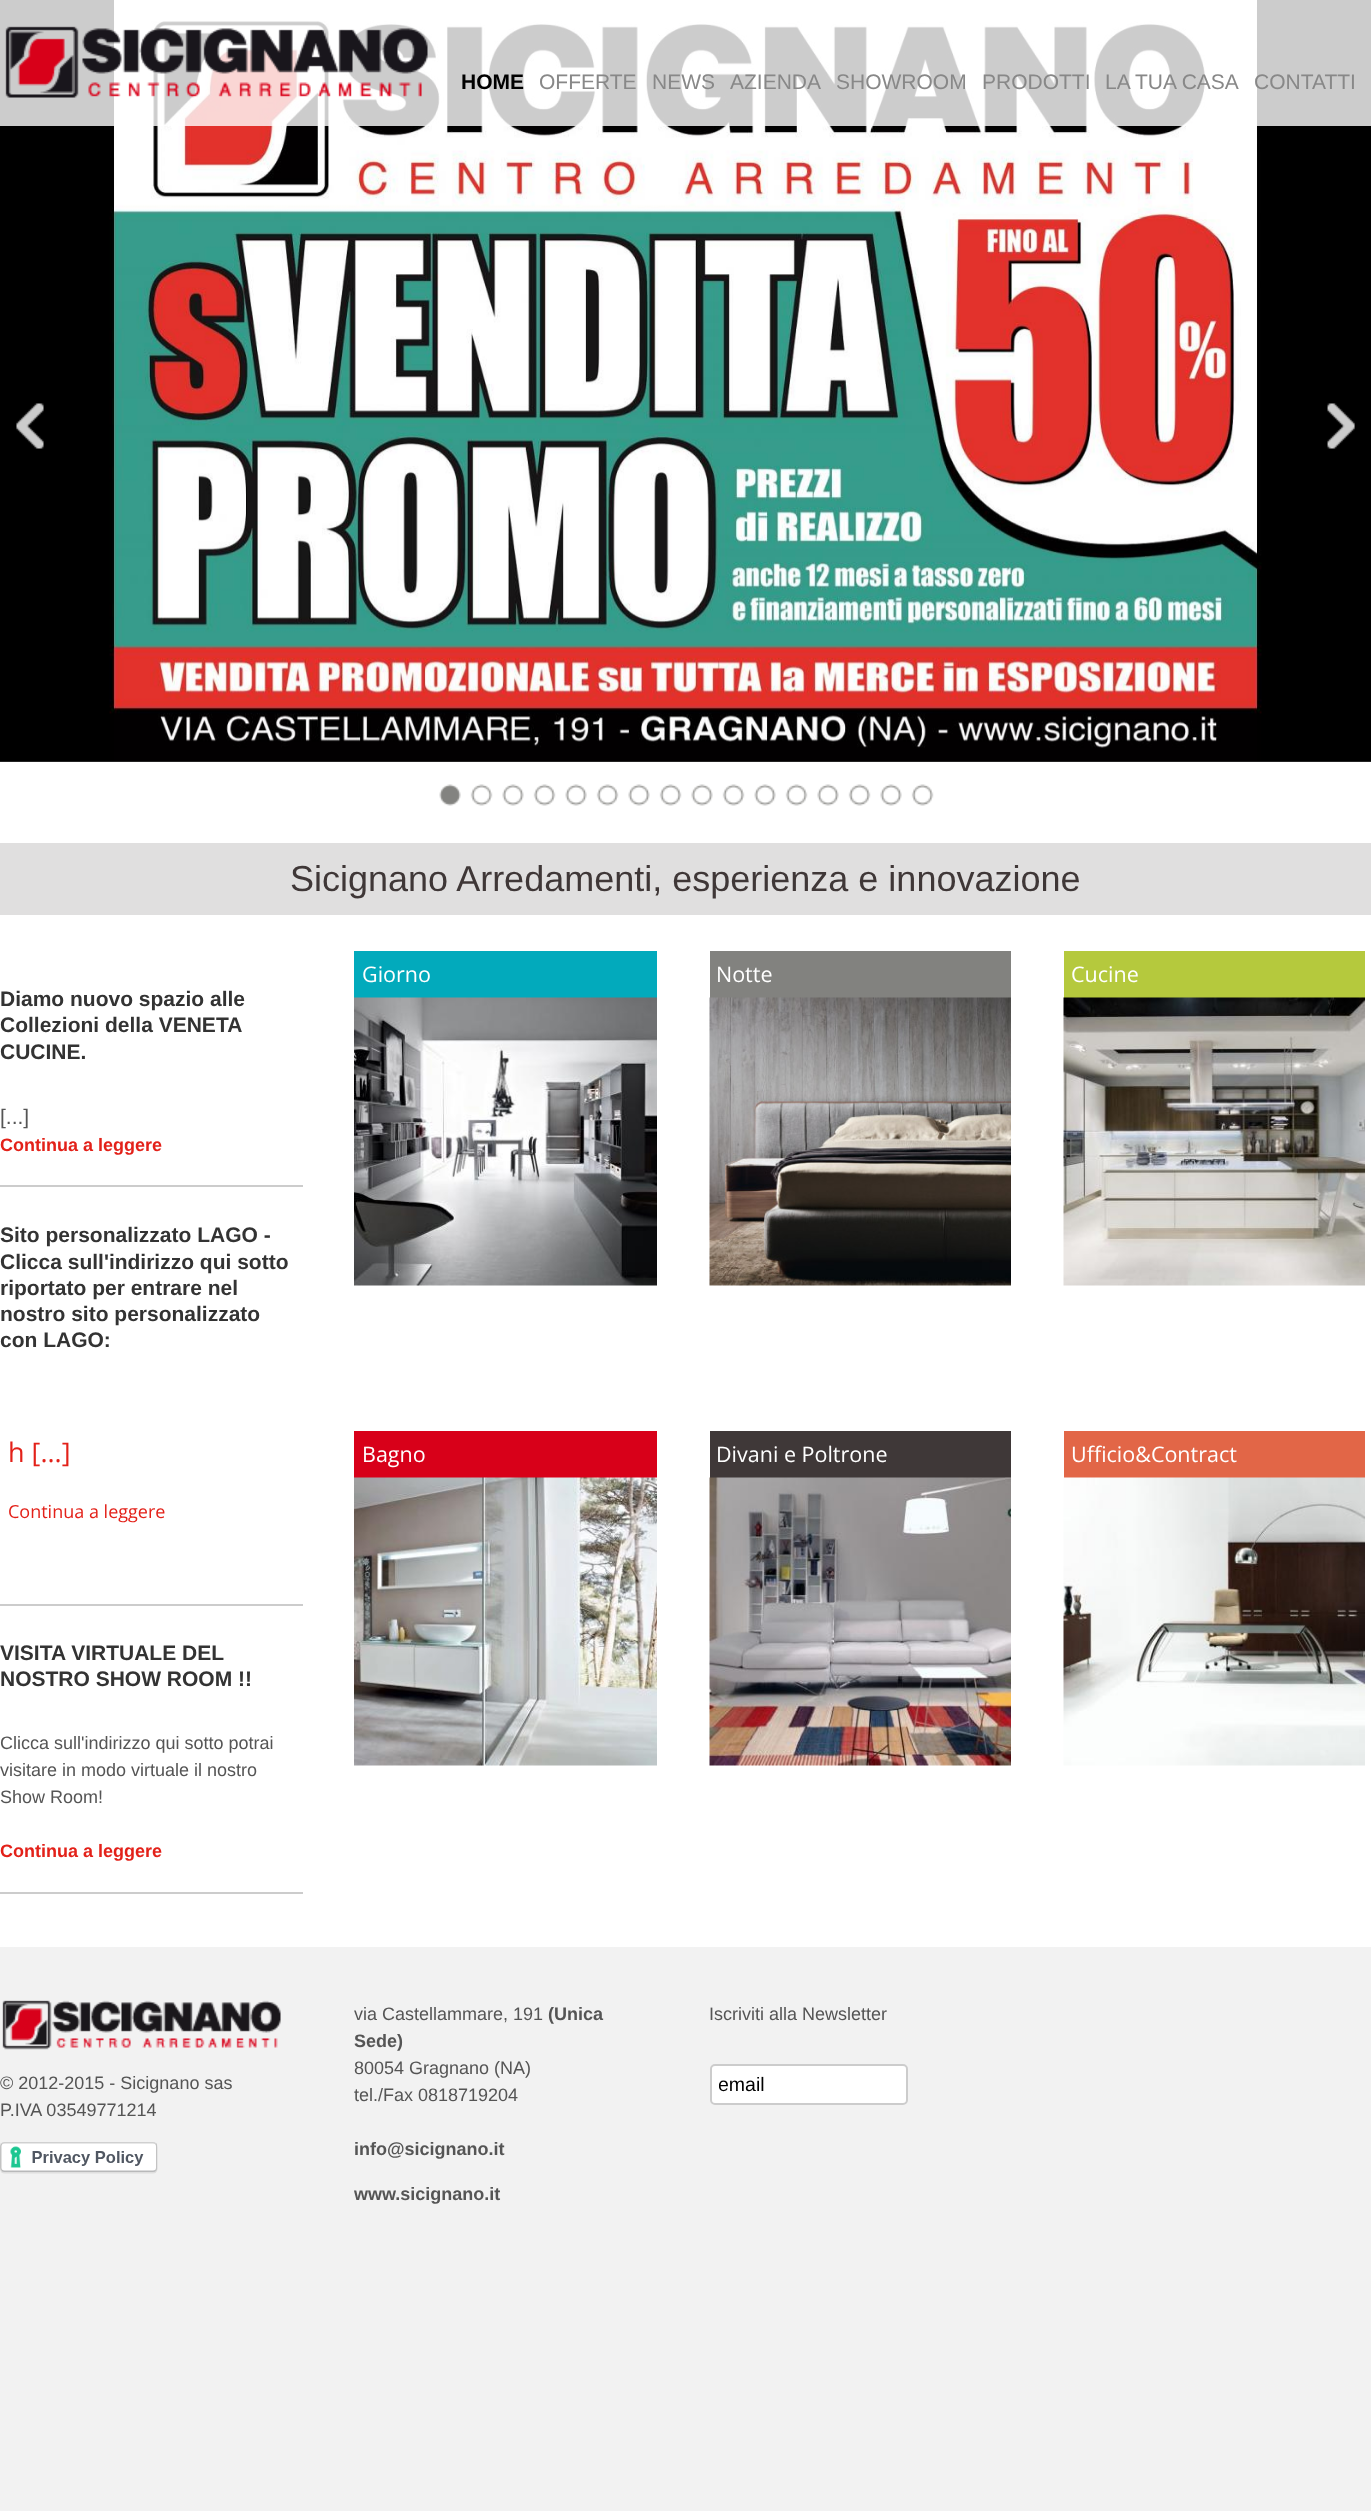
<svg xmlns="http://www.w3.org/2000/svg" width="1371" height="2511">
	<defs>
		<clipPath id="clip1"><rect x="719" y="2073" width="180" height="23" /></clipPath>
	</defs>
	<rect width="100%" height="100%" fill="#F2F2F2" />
	<rect x="0" y="761" width="1371" height="1186" fill="#FFFFFF" />
	<image x="0" y="0" width="1371" height="762" href="assets/img1.png" />
	<image x="16" y="403" width="28" height="46" href="assets/img2.png" />
	<image x="1327" y="403" width="28" height="46" href="assets/img3.png" />
	<image x="439" y="784" width="22" height="22" href="assets/img4.png" />
	<image x="470" y="784" width="23" height="22" href="assets/img5.png" />
	<image x="502" y="784" width="22" height="22" href="assets/img6.png" />
	<image x="533" y="784" width="23" height="22" href="assets/img7.png" />
	<image x="565" y="784" width="22" height="22" href="assets/img8.png" />
	<image x="596" y="784" width="23" height="22" href="assets/img7.png" />
	<image x="628" y="784" width="22" height="22" href="assets/img9.png" />
	<image x="659" y="784" width="23" height="22" href="assets/img7.png" />
	<image x="691" y="784" width="22" height="22" href="assets/img9.png" />
	<image x="722" y="784" width="23" height="22" href="assets/img7.png" />
	<image x="754" y="784" width="22" height="22" href="assets/img6.png" />
	<image x="785" y="784" width="23" height="22" href="assets/img5.png" />
	<image x="817" y="784" width="22" height="22" href="assets/img9.png" />
	<image x="848" y="784" width="23" height="22" href="assets/img5.png" />
	<image x="880" y="784" width="22" height="22" href="assets/img9.png" />
	<image x="911" y="784" width="23" height="22" href="assets/img5.png" />
	<rect x="0" y="0" width="1371" height="126" fill="#FFFFFF" fill-opacity="0.8" />
	<image x="5" y="26" width="423" height="72" href="assets/img10.png" />
	<text x="461" y="89" font-family="Liberation Sans" font-size="21" font-weight="700" fill="#000000">HOME</text>
	<g font-family="Liberation Sans" font-size="21" fill="#888888">
		<text x="539" y="89">OFFERTE</text>
		<text x="652" y="89">NEWS</text>
		<text x="730" y="89">AZIENDA</text>
		<text x="836" y="89">SHOWROOM</text>
		<text x="982" y="89">PRODOTTI</text>
		<text x="1105" y="89">LA TUA CASA</text>
		<text x="1254" y="89">CONTATTI</text>
	</g>
	<rect x="0" y="843" width="1371" height="72" fill="#E0DFDF" />
	<text x="290" y="891" font-family="Liberation Sans" font-size="36" fill="#3F3737">Sicignano Arredamenti, esperienza e innovazione</text>
	<rect x="0" y="1185" width="303" height="2" fill="#CCCCCC" />
	<g font-family="Liberation Sans" font-size="21" font-weight="700" fill="#333333">
		<text x="0" y="1006">Diamo nuovo spazio alle</text>
		<text x="0" y="1032">Collezioni della VENETA</text>
		<text x="0" y="1059">CUCINE.</text>
	</g>
	<text x="0" y="1124" font-family="Liberation Sans" font-size="21" fill="#555555">[...]</text>
	<text x="0" y="1151" font-family="Liberation Sans" font-size="18" font-weight="700" fill="#E32119">Continua a leggere</text>
	<rect x="0" y="1604" width="303" height="2" fill="#CCCCCC" />
	<g font-family="Liberation Sans" font-size="21" font-weight="700" fill="#333333">
		<text x="0" y="1242">Sito personalizzato LAGO -</text>
		<text x="0" y="1269">Clicca sull'indirizzo qui sotto</text>
		<text x="0" y="1295">riportato per entrare nel</text>
		<text x="0" y="1321">nostro sito personalizzato</text>
		<text x="0" y="1347">con LAGO:</text>
	</g>
	<text x="8" y="1462" font-family="Open Sans" font-size="27" fill="#E32119">h [...]</text>
	<text x="8" y="1518" font-family="Open Sans" font-size="18" fill="#E32119">Continua a leggere</text>
	<rect x="0" y="1892" width="303" height="2" fill="#CCCCCC" />
	<g font-family="Liberation Sans" font-size="21" font-weight="700" fill="#333333">
		<text x="0" y="1660">VISITA VIRTUALE DEL</text>
		<text x="0" y="1686">NOSTRO SHOW ROOM !!</text>
	</g>
	<g font-family="Liberation Sans" font-size="18" fill="#555555">
		<text x="0" y="1749">Clicca sull'indirizzo qui sotto potrai</text>
		<text x="0" y="1776">visitare in modo virtuale il nostro</text>
		<text x="0" y="1803">Show Room!</text>
	</g>
	<text x="0" y="1857" font-family="Liberation Sans" font-size="18" font-weight="700" fill="#E32119">Continua a leggere</text>
	<rect x="354" y="951" width="303" height="47" fill="#02AABC" />
	<text x="362" y="982" font-family="Open Sans" font-size="21.5" fill="#FFFFFF">Giorno</text>
	<image x="354" y="997" width="303" height="289" href="assets/img11.png" />
	<rect x="354" y="1431" width="303" height="47" fill="#D80019" />
	<text x="362" y="1462" font-family="Open Sans" font-size="21.5" fill="#FFFFFF">Bagno</text>
	<image x="354" y="1477" width="303" height="289" href="assets/img12.png" />
	<rect x="710" y="951" width="301" height="47" fill="#82827F" />
	<text x="716" y="982" font-family="Open Sans" font-size="21.5" fill="#FFFFFF">Notte</text>
	<image x="709" y="997" width="302" height="289" href="assets/img13.png" />
	<rect x="710" y="1431" width="301" height="47" fill="#3F3838" />
	<text x="716" y="1462" font-family="Open Sans" font-size="21.5" fill="#FFFFFF">Divani e Poltrone</text>
	<image x="709" y="1477" width="302" height="289" href="assets/img14.png" />
	<rect x="1064" y="951" width="301" height="47" fill="#B5C93D" />
	<text x="1071" y="982" font-family="Open Sans" font-size="21.5" fill="#FFFFFF">Cucine</text>
	<image x="1063" y="997" width="302" height="289" href="assets/img15.png" />
	<rect x="1064" y="1431" width="301" height="47" fill="#E26647" />
	<text x="1071" y="1462" font-family="Open Sans" font-size="21.5" fill="#FFFFFF">Ufficio&amp;Contract</text>
	<image x="1063" y="1477" width="302" height="289" href="assets/img16.png" />
	<image x="2" y="2000" width="279" height="50" href="assets/img17.png" />
	<g font-family="Liberation Sans" font-size="18" fill="#555555">
		<text x="0" y="2089">© 2012-2015 - Sicignano sas</text>
		<text x="0" y="2116">P.IVA 03549771214</text>
	</g>
	<image x="0" y="2142" width="158" height="32" href="assets/img18.png" />
	<text x="354" y="2020" font-family="Liberation Sans" font-size="18" fill="#555555">via Castellammare, 191</text>
	<g font-family="Liberation Sans" font-size="18" font-weight="700" fill="#555555">
		<text x="548" y="2020">(Unica</text>
		<text x="354" y="2047">Sede)</text>
	</g>
	<g font-family="Liberation Sans" font-size="18" fill="#555555">
		<text x="354" y="2074">80054 Gragnano (NA)</text>
		<text x="354" y="2101">tel./Fax 0818719204</text>
	</g>
	<g font-family="Liberation Sans" font-size="18" font-weight="700" fill="#555555">
		<text x="354" y="2155">info@sicignano.it</text>
		<text x="354" y="2200">www.sicignano.it</text>
	</g>
	<text x="709" y="2020" font-family="Liberation Sans" font-size="18" fill="#555555">Iscriviti alla Newsletter</text>
	<rect x="711" y="2065" width="196" height="39" rx="4" fill="#FFFFFF" stroke="#CCCCCC" stroke-width="2" />
	<g clip-path="url(#clip1)">
		<text x="718" y="2091" font-family="Liberation Sans" font-size="19.5" fill="#000000">email</text>
	</g>
</svg>
